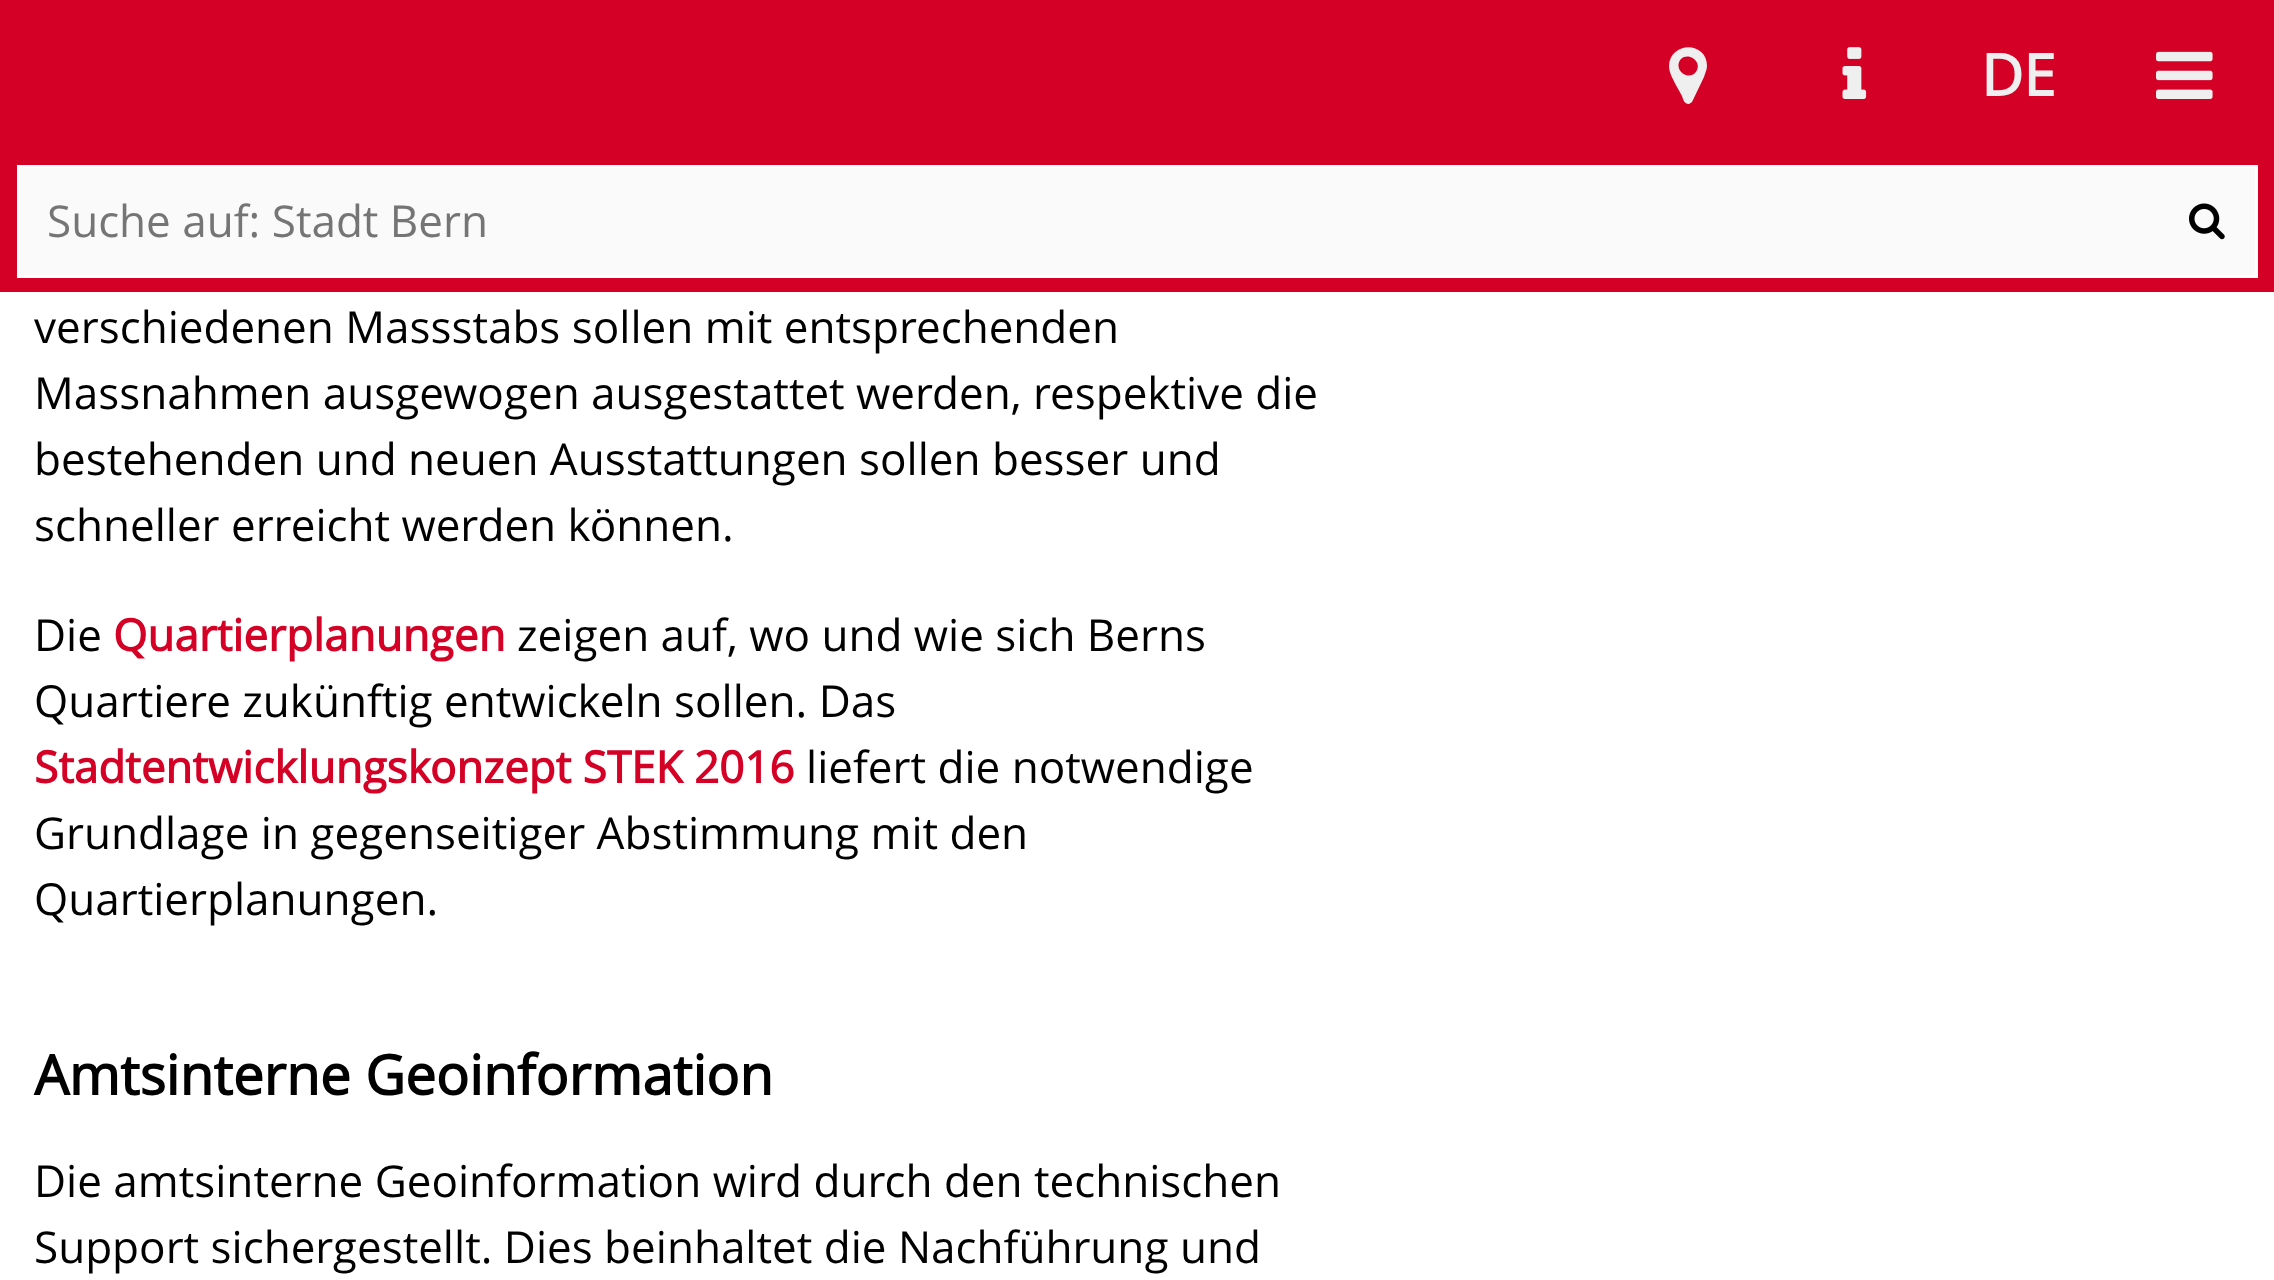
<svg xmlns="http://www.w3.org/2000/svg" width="2274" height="1280">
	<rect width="100%" height="100%" fill="#FFFFFF" />
	<rect x="0" y="0" width="2274" height="292" fill="#D50025" />
	<path d="M1695 73C1704 64 1690 51 1681 59C1673 68 1686 81 1695 73ZM1707 66C1707 70 1705 73 1704 77L1692 102L1689 104C1684 104 1683 99 1682 96L1677 87C1674 81 1669 73 1669 66C1670 41 1707 41 1707 66Z" fill="#EFEFEF" />
	<image x="1842" y="47" width="25" height="52" href="assets/img1.png" />
	<text x="1981" y="96" font-family="Open Sans" font-size="58" font-weight="700" fill="#EFEFEF">DE</text>
	<image x="2156" y="51" width="57" height="48" href="assets/img2.png" />
	<rect x="18.5" y="166.5" width="2238" height="110" fill="#FAFAFA" stroke="#FFFFFF" stroke-width="3" />
	<text x="47" y="237" font-family="Open Sans" font-size="44" fill="#757575">Suche auf: Stadt Bern</text>
	<image x="2189" y="203" width="36" height="37" href="assets/img3.png" />
	<g font-family="Open Sans" font-size="44" fill="#000000">
		<text x="34" y="343">verschiedenen Massstabs sollen mit entsprechenden</text>
		<text x="34" y="409">Massnahmen ausgewogen ausgestattet werden, respektive die</text>
		<text x="34" y="475">bestehenden und neuen Ausstattungen sollen besser und</text>
		<text x="34" y="541">schneller erreicht werden können.</text>
		<text x="34" y="651">Die</text>
	</g>
	<text x="113" y="651" font-family="Open Sans" font-size="44" font-weight="700" fill="#D50025">Quartierplanungen</text>
	<g font-family="Open Sans" font-size="44" fill="#000000">
		<text x="517" y="651">zeigen auf, wo und wie sich Berns</text>
		<text x="34" y="717">Quartiere zukünftig entwickeln sollen. Das</text>
	</g>
	<text x="34" y="783" font-family="Open Sans" font-size="44" font-weight="700" fill="#D50025">Stadtentwicklungskonzept STEK 2016</text>
	<g font-family="Open Sans" font-size="44" fill="#000000">
		<text x="806" y="783">liefert die notwendige</text>
		<text x="34" y="849">Grundlage in gegenseitiger Abstimmung mit den</text>
		<text x="34" y="915">Quartierplanungen.</text>
	</g>
	<text x="34" y="1095" font-family="Open Sans" font-size="55" font-weight="700" fill="#000000">Amtsinterne Geoinformation</text>
	<g font-family="Open Sans" font-size="44" fill="#000000">
		<text x="34" y="1197">Die amtsinterne Geoinformation wird durch den technischen</text>
		<text x="34" y="1263">Support sichergestellt. Dies beinhaltet die Nachführung und</text>
	</g>
</svg>
